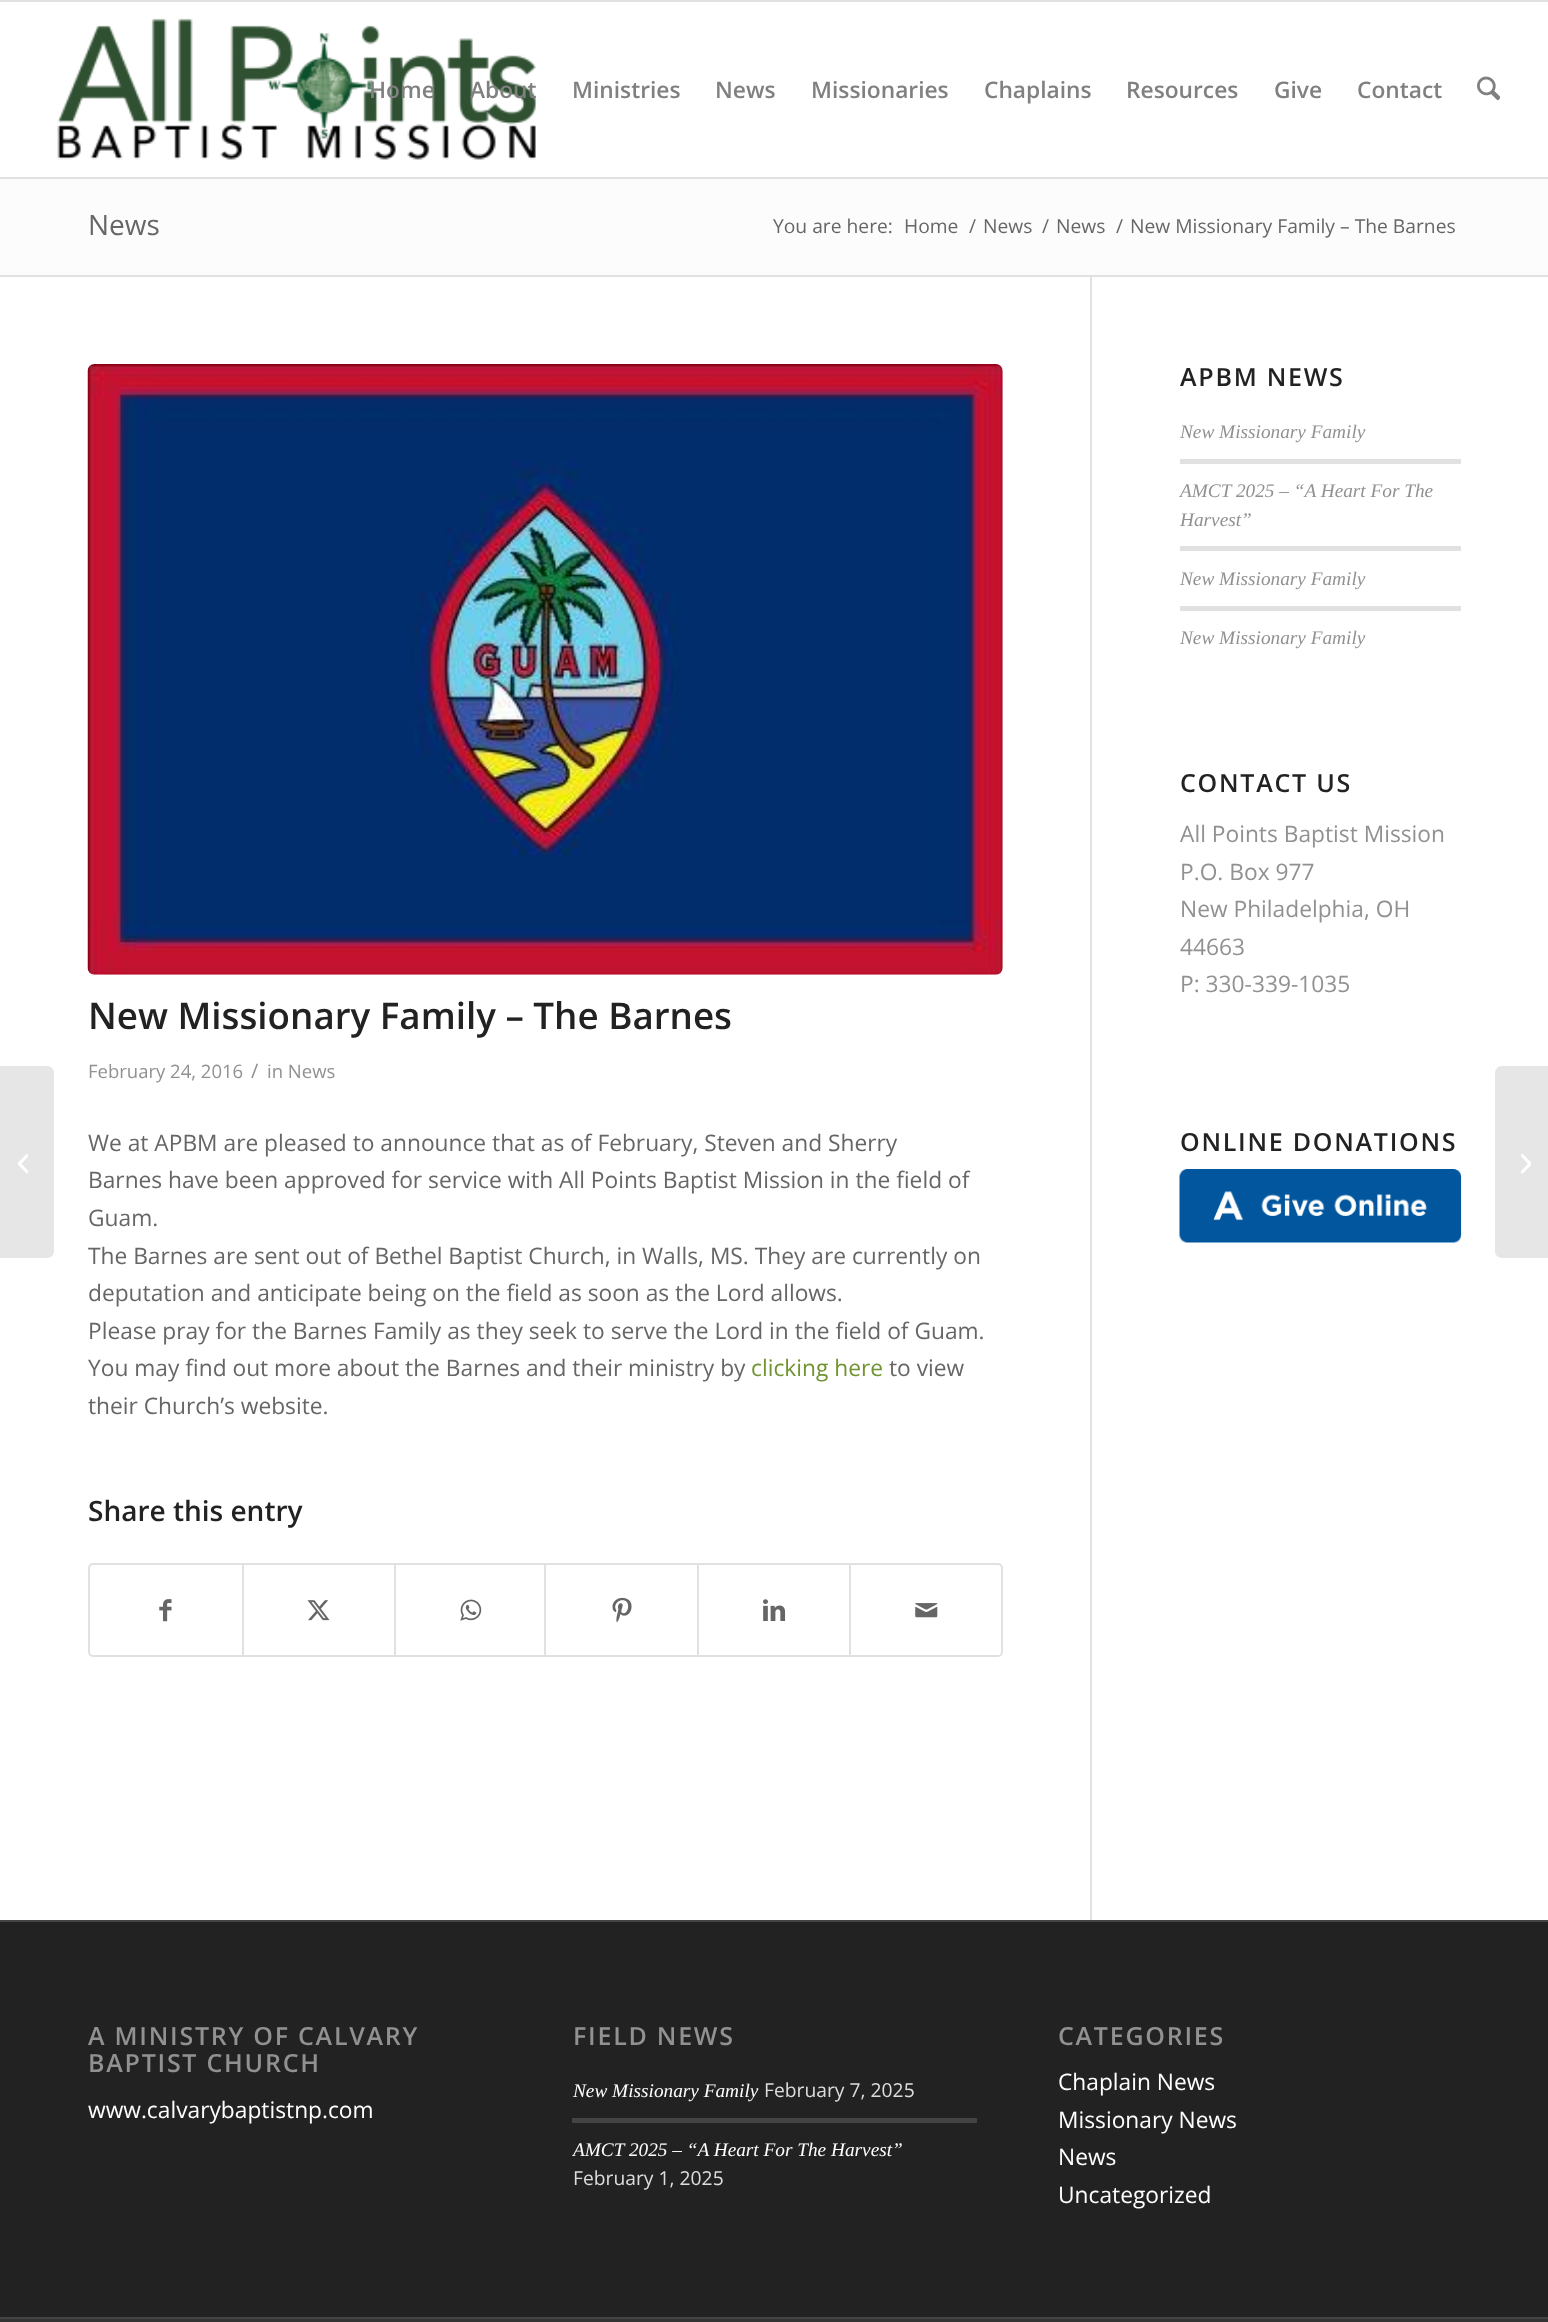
<svg xmlns="http://www.w3.org/2000/svg" width="1548" height="2322">
	<defs>
		<clipPath id="clip1"><rect x="88" y="992" width="1002" height="840" /></clipPath>
	</defs>
	<rect width="100%" height="100%" fill="#FFFFFF" />
	<rect x="0" y="0" width="1548" height="2" fill="#E1E1E1" />
	<rect x="0" y="177" width="1548" height="2" fill="#E1E1E1" />
	<image x="57" y="18" width="480" height="142" href="assets/img1.png" />
	<g font-family="Open Sans" font-size="22.75" font-weight="600" fill="#808080">
		<text x="369" y="98">Home</text>
		<text x="470" y="98">About</text>
		<text x="572" y="98">Ministries</text>
		<text x="715" y="98">News</text>
		<text x="811" y="98">Missionaries</text>
		<text x="984" y="98">Chaplains</text>
		<text x="1126" y="98">Resources</text>
		<text x="1274" y="98">Give</text>
		<text x="1357" y="98">Contact</text>
	</g>
	<image x="1477" y="76" width="23" height="25" href="assets/img2.png" />
	<path d="M0 1066H47C51 1066 54 1069 54 1073V1251C54 1255 51 1258 47 1258H0Z" fill="#E6E6E6" />
	<image x="18" y="1154" width="10" height="20" href="assets/img3.png" />
	<rect x="0" y="179" width="1548" height="96" fill="#FCFCFC" />
	<text x="88" y="235" font-family="Open Sans" font-size="28" fill="#666666">News</text>
	<g font-family="Open Sans" font-size="19.25" fill="#666666">
		<text x="773" y="233">You are here:</text>
		<text x="904" y="233">Home</text>
		<text x="969" y="233">/</text>
		<text x="983" y="233">News</text>
		<text x="1042" y="233">/</text>
		<text x="1056" y="233">News</text>
		<text x="1116" y="233">/</text>
		<text x="1130" y="233">New Missionary Family – The Barnes</text>
	</g>
	<rect x="0" y="275" width="1548" height="2" fill="#E1E1E1" />
	<text x="1180" y="386" font-family="Open Sans" font-size="25" font-weight="600" letter-spacing="1.75" fill="#222222">APBM NEWS</text>
	<text x="1180" y="438" font-family="Liberation Serif" font-size="19.3" font-style="italic" fill="#919191">New Missionary Family</text>
	<rect x="1180" y="459" width="281" height="5" fill="#E1E1E1" />
	<g font-family="Liberation Serif" font-size="19.3" font-style="italic" fill="#919191">
		<text x="1180" y="497">AMCT 2025 – “A Heart For The</text>
		<text x="1180" y="526">Harvest”</text>
	</g>
	<rect x="1180" y="546" width="281" height="5" fill="#E1E1E1" />
	<text x="1180" y="585" font-family="Liberation Serif" font-size="19.3" font-style="italic" fill="#919191">New Missionary Family</text>
	<rect x="1180" y="606" width="281" height="5" fill="#E1E1E1" />
	<text x="1180" y="644" font-family="Liberation Serif" font-size="19.3" font-style="italic" fill="#919191">New Missionary Family</text>
	<text x="1180" y="792" font-family="Open Sans" font-size="25" font-weight="600" letter-spacing="1.75" fill="#222222">CONTACT US</text>
	<g font-family="Open Sans" font-size="22.75" fill="#919191">
		<text x="1180" y="842">All Points Baptist Mission</text>
		<text x="1180" y="880">P.O. Box 977</text>
		<text x="1180" y="917">New Philadelphia, OH</text>
		<text x="1180" y="955">44663</text>
		<text x="1180" y="992">P: 330-339-1035</text>
	</g>
	<text x="1180" y="1151" font-family="Open Sans" font-size="25" font-weight="600" letter-spacing="1.75" fill="#222222">ONLINE DONATIONS</text>
	<image x="1179" y="1169" width="283" height="74" href="assets/img4.png" />
	<rect x="1090" y="277" width="2" height="1643" fill="#E1E1E1" />
	<image x="87" y="364" width="916" height="611" href="assets/img5.png" />
	<text x="88" y="1029" font-family="Open Sans" font-size="36.75" font-weight="600" fill="#222222">New Missionary Family – The Barnes</text>
	<text x="88" y="1078" font-family="Open Sans" font-size="18.5" fill="#919191">February 24, 2016</text>
	<text x="251" y="1078" font-family="Open Sans" font-size="20" fill="#919191">/</text>
	<text x="267" y="1078" font-family="Open Sans" font-size="18.5" fill="#919191">in News</text>
	<g font-family="Open Sans" font-size="22.75" fill="#666666">
		<text x="88" y="1151">We at APBM are pleased to announce that as of February, Steven and Sherry</text>
		<text x="88" y="1188">Barnes have been approved for service with All Points Baptist Mission in the field of</text>
		<text x="88" y="1226">Guam.</text>
	</g>
	<g clip-path="url(#clip1)">
		<text x="88" y="1264" font-family="Open Sans" font-size="22.75" fill="#666666">The Barnes are sent out of Bethel Baptist Church, in Walls, MS. They are currently on</text>
	</g>
	<g font-family="Open Sans" font-size="22.75" fill="#666666">
		<text x="88" y="1301">deputation and anticipate being on the field as soon as the Lord allows.</text>
		<text x="88" y="1339">Please pray for the Barnes Family as they seek to serve the Lord in the field of Guam.</text>
		<text x="88" y="1376">You may find out more about the Barnes and their ministry by</text>
	</g>
	<text x="751" y="1376" font-family="Open Sans" font-size="22.75" fill="#719430">clicking here</text>
	<g font-family="Open Sans" font-size="22.75" fill="#666666">
		<text x="889" y="1376">to view</text>
		<text x="88" y="1414">their Church’s website.</text>
	</g>
	<text x="88" y="1521" font-family="Open Sans" font-size="28" font-weight="600" fill="#222222">Share this entry</text>
	<rect x="89" y="1564" width="913" height="92" rx="4" fill="none" stroke="#E1E1E1" stroke-width="2" />
	<image x="159" y="1599" width="13" height="23" href="assets/img6.png" />
	<rect x="242" y="1565" width="2" height="91" fill="#E1E1E1" />
	<image x="307" y="1600" width="23" height="21" href="assets/img7.png" />
	<rect x="394" y="1565" width="2" height="91" fill="#E1E1E1" />
	<image x="460" y="1599" width="22" height="22" href="assets/img8.png" />
	<rect x="544" y="1565" width="2" height="91" fill="#E1E1E1" />
	<image x="612" y="1597" width="20" height="26" href="assets/img9.png" />
	<rect x="697" y="1565" width="2" height="91" fill="#E1E1E1" />
	<image x="763" y="1599" width="23" height="22" href="assets/img10.png" />
	<rect x="849" y="1565" width="2" height="91" fill="#E1E1E1" />
	<image x="915" y="1603" width="23" height="15" href="assets/img11.png" />
	<rect x="0" y="1922" width="1548" height="395" fill="#222222" />
	<rect x="0" y="1920" width="1548" height="2" fill="#444444" />
	<g font-family="Open Sans" font-size="25" font-weight="600" letter-spacing="1.75" fill="#919191">
		<text x="88" y="2045">A MINISTRY OF CALVARY</text>
		<text x="88" y="2072">BAPTIST CHURCH</text>
	</g>
	<text x="88" y="2118" font-family="Open Sans" font-size="22.75" fill="#FFFFFF">www.calvarybaptistnp.com</text>
	<text x="573" y="2045" font-family="Open Sans" font-size="25" font-weight="600" letter-spacing="1.75" fill="#919191">FIELD NEWS</text>
	<text x="573" y="2097" font-family="Liberation Serif" font-size="19.3" font-style="italic" fill="#FFFFFF">New Missionary Family</text>
	<text x="764" y="2097" font-family="Open Sans" font-size="19.3" fill="#DDDDDD">February 7, 2025</text>
	<rect x="572" y="2118" width="405" height="5" fill="#444444" />
	<text x="573" y="2156" font-family="Liberation Serif" font-size="19.3" font-style="italic" fill="#FFFFFF">AMCT 2025 – “A Heart For The Harvest”</text>
	<text x="573" y="2185" font-family="Open Sans" font-size="19.3" fill="#DDDDDD">February 1, 2025</text>
	<text x="1058" y="2045" font-family="Open Sans" font-size="25" font-weight="600" letter-spacing="1.75" fill="#919191">CATEGORIES</text>
	<g font-family="Open Sans" font-size="22.75" fill="#FFFFFF">
		<text x="1058" y="2090">Chaplain News</text>
		<text x="1058" y="2128">Missionary News</text>
		<text x="1058" y="2165">News</text>
		<text x="1058" y="2203">Uncategorized</text>
	</g>
	<rect x="0" y="2319" width="1548" height="3" fill="#333333" />
	<rect x="0" y="2317" width="1548" height="2" fill="#444444" />
	<path d="M1502 1066H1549V1258H1502C1498 1258 1495 1255 1495 1251V1073C1495 1069 1498 1066 1502 1066Z" fill="#E6E6E6" />
	<image x="1521" y="1154" width="10" height="20" href="assets/img12.png" />
</svg>
